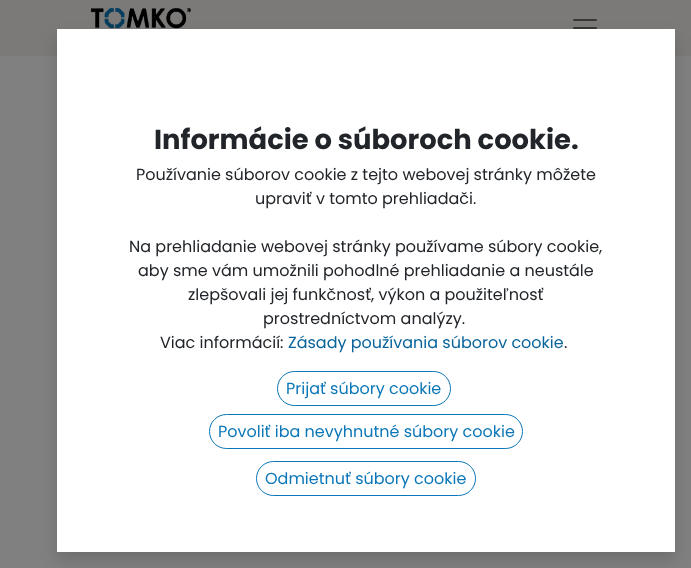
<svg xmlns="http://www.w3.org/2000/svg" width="691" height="568">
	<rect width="100%" height="100%" fill="#808080" />
	<rect x="0" y="0" width="691" height="56" fill="#7B7A79" />
	<image x="91" y="8" width="100" height="21" href="assets/img1.png" />
	<image x="573" y="19" width="24" height="10" href="assets/img2.png" />
	<rect x="57" y="37" width="618" height="523" fill="#000000" fill-opacity="0.15" filter="blur(8px)" />
	<rect x="57" y="29" width="618" height="523" fill="#FFFFFF" />
	<text x="154" y="149" font-family="Poppins" font-size="27.4" font-weight="700" fill="#212529">Informácie o súboroch cookie.</text>
	<g font-family="Poppins" font-size="16" fill="#212529">
		<text x="136" y="180">Používanie súborov cookie z tejto webovej stránky môžete</text>
		<text x="255" y="204">upraviť v tomto prehliadači.</text>
		<text x="129" y="252">Na prehliadanie webovej stránky používame súbory cookie,</text>
		<text x="138" y="276">aby sme vám umožnili pohodlné prehliadanie a neustále</text>
		<text x="188" y="300">zlepšovali jej funkčnosť, výkon a použiteľnosť</text>
		<text x="263" y="324">prostredníctvom analýzy.</text>
		<text x="160" y="348">Viac informácií:</text>
	</g>
	<text x="288" y="348" font-family="Poppins" font-size="16" fill="#09649B">Zásady používania súborov cookie</text>
	<text x="564" y="348" font-family="Poppins" font-size="16" fill="#212529">.</text>
	<rect x="277.5" y="371.5" width="173" height="34" rx="17" fill="none" stroke="#0B77B8" />
	<text x="286" y="394" font-family="Poppins" font-size="16" fill="#0B77B8">Prijať súbory cookie</text>
	<rect x="209.5" y="414.5" width="313" height="34" rx="17" fill="none" stroke="#0B77B8" />
	<text x="218" y="437" font-family="Poppins" font-size="16" fill="#0B77B8">Povoliť iba nevyhnutné súbory cookie</text>
	<rect x="256.5" y="461.5" width="219" height="34" rx="17" fill="none" stroke="#0B77B8" />
	<text x="265" y="484" font-family="Poppins" font-size="16" fill="#0B77B8">Odmietnuť súbory cookie</text>
</svg>
